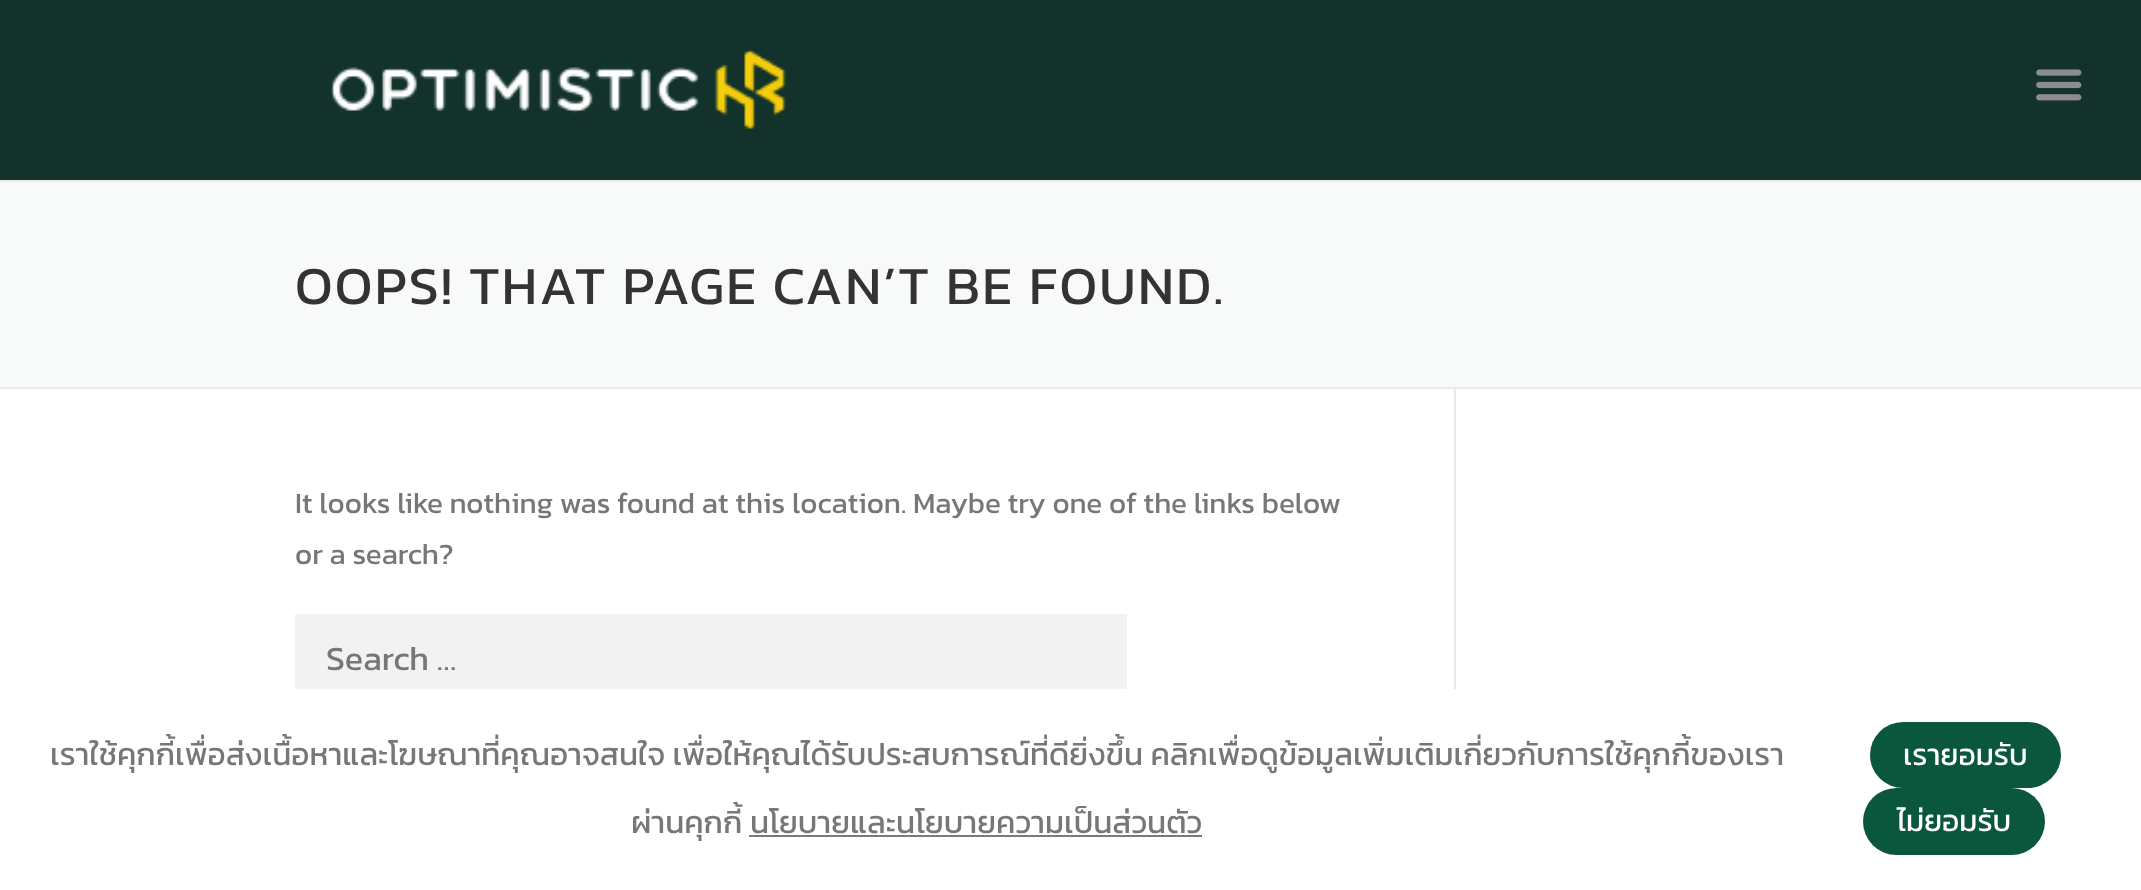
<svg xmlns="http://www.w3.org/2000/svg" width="2141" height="890">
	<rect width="100%" height="100%" fill="#FFFFFF" />
	<rect x="0" y="0" width="2141" height="180" fill="#13322C" />
	<image x="330" y="49" width="456" height="80" href="assets/img1.png" />
	<image x="2036" y="69" width="46" height="32" href="assets/img2.png" />
	<rect x="0" y="182" width="2141" height="205" fill="#F8F9F9" />
	<rect x="0" y="180" width="2141" height="2" fill="#E9E9E9" />
	<rect x="0" y="387" width="2141" height="2" fill="#E9E9E9" />
	<text x="295" y="304" font-family="Kanit" font-size="54" letter-spacing="2.25" fill="#333333">OOPS! THAT PAGE CAN’T BE FOUND.</text>
	<rect x="1454" y="389" width="2" height="300" fill="#E9E9E9" />
	<g font-family="Kanit" font-size="29.55" fill="#777777">
		<text x="295" y="513">It looks like nothing was found at this location. Maybe try one of the links below</text>
		<text x="295" y="564">or a search?</text>
	</g>
	<rect x="295" y="614" width="832" height="75" fill="#F2F2F2" />
	<text x="326" y="670" font-family="Kanit" font-size="34" fill="#777777">Search …</text>
	<g font-family="Kanit" font-size="31.5" fill="#777777">
		<text x="50" y="765">เราใช้คุกกี้เพื่อส่งเนื้อหาและโฆษณาที่คุณอาจสนใจ เพื่อให้คุณได้รับประสบการณ์ที่ดียิ่งขึ้น คลิกเพื่อดูข้อมูลเพิ่มเติมเกี่ยวกับการใช้คุกกี้ของเรา</text>
		<text x="631" y="833">ผ่านคุกกี้</text>
		<text x="750" y="833">นโยบายและนโยบายความเป็นส่วนตัว</text>
	</g>
	<rect x="749" y="835" width="453" height="2" fill="#7A7A7A" />
	<rect x="1870" y="722" width="191" height="66" rx="33" fill="#0B573D" />
	<text x="1903" y="765" font-family="Kanit" font-size="30" fill="#FFFFFF">เรายอมรับ</text>
	<rect x="1863" y="788" width="182" height="67" rx="33.5" fill="#0B573D" />
	<text x="1897" y="831" font-family="Kanit" font-size="30" fill="#FFFFFF">ไม่ยอมรับ</text>
</svg>
